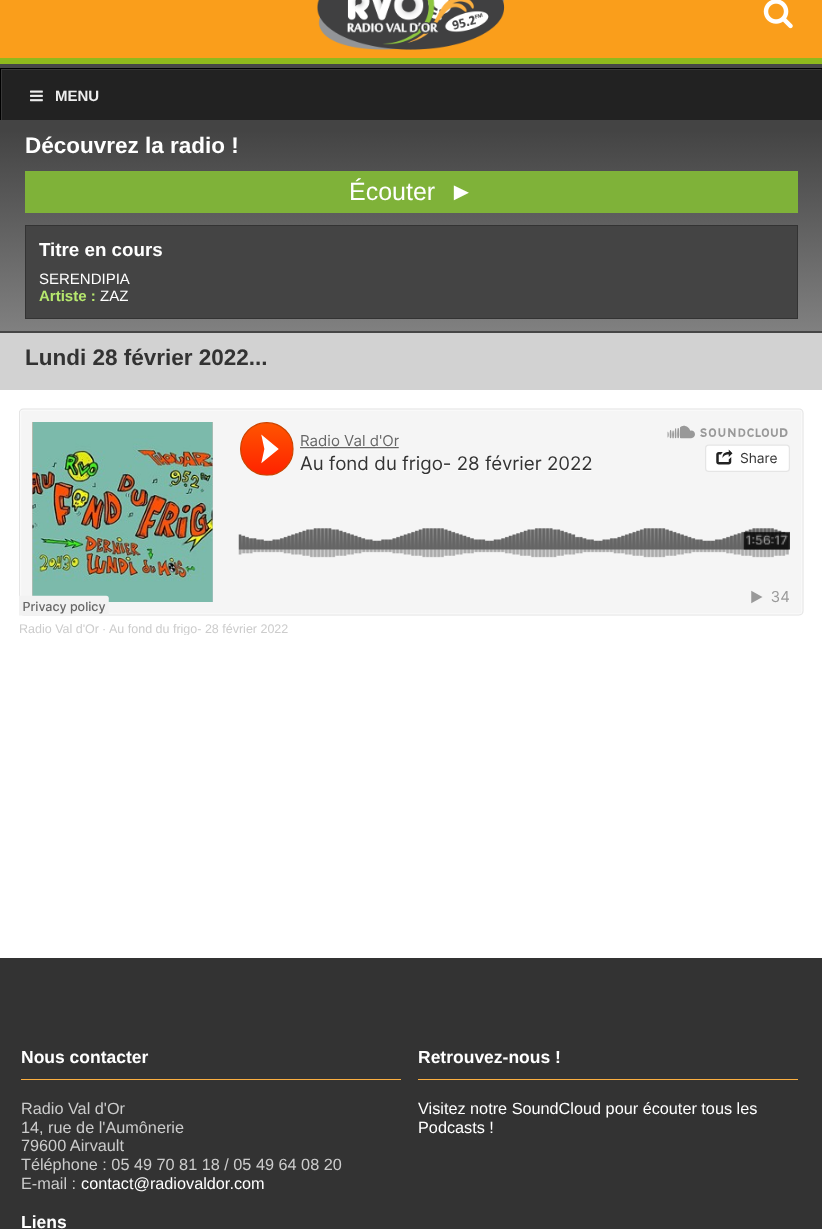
<svg xmlns="http://www.w3.org/2000/svg" width="822" height="1229">
	<defs>
		<clipPath id="clip1"><rect x="1" y="69" width="820" height="57" /></clipPath>
		<linearGradient id="g1" gradientUnits="userSpaceOnUse" x1="411" y1="120" x2="411" y2="331"><stop offset="0.05" stop-color="#444444" /><stop offset="1" stop-color="#808080" /></linearGradient>
		<clipPath id="clip2"><rect x="19" y="621" width="785" height="14" /></clipPath>
	</defs>
	<rect width="100%" height="100%" fill="#FFFFFF" />
	<rect x="0" y="64" width="822" height="269" fill="#464646" />
	<rect x="0" y="0" width="822" height="58" fill="#FA9E1B" />
	<rect x="0" y="58" width="822" height="6" fill="#8FB91D" />
	<image x="763" y="0" width="30" height="29" href="assets/img1.png" />
	<image x="317" y="0" width="188" height="50" href="assets/img2.png" />
	<rect x="2" y="69" width="820" height="51" fill="#222222" />
	<g clip-path="url(#clip1)">
		<path d="M-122-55H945V250H-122ZM2 70H822V128H2Z" fill="#383838" fill-rule="evenodd" />
	</g>
	<rect x="0.5" y="68.5" width="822" height="59" fill="none" stroke="#000000" />
	<image x="30" y="90" width="13" height="12" href="assets/img3.png" />
	<text x="55" y="101" font-family="Liberation Sans" font-size="15" font-weight="700" fill="#EEEEEE">MENU</text>
	<rect x="0" y="120" width="822" height="211" fill="url(#g1)" />
	<text x="25" y="153" font-family="Liberation Sans" font-size="22.5" font-weight="700" fill="#FFFFFF">Découvrez la radio !</text>
	<rect x="25" y="171" width="773" height="42" fill="#7FB239" />
	<text x="349" y="200" font-family="Liberation Sans" font-size="25" fill="#FFFFFF" xml:space="preserve">Écouter  ►</text>
	<rect x="25.5" y="225.5" width="772" height="93" fill="#444444" stroke="#333333" />
	<text x="39" y="256" font-family="Liberation Sans" font-size="18.75" font-weight="700" fill="#FFFFFF">Titre en cours</text>
	<text x="39" y="284" font-family="Liberation Sans" font-size="15" fill="#FFFFFF">SERENDIPIA</text>
	<text x="39" y="301" font-family="Liberation Sans" font-size="15" font-weight="700" fill="#B6E76E">Artiste :</text>
	<text x="100" y="301" font-family="Liberation Sans" font-size="15" fill="#FFFFFF">ZAZ</text>
	<rect x="0" y="333" width="822" height="57" fill="#D2D2D2" />
	<text x="25" y="365" font-family="Liberation Sans" font-size="22.5" font-weight="700" fill="#333333">Lundi 28 février 2022...</text>
	<image x="19" y="408" width="785" height="208" href="assets/img4.png" />
	<g font-family="Liberation Sans" font-size="12.5" fill="#CCCCCC">
		<text x="19" y="633">Radio Val d'Or</text>
		<text x="102" y="633">·</text>
	</g>
	<g clip-path="url(#clip2)">
		<text x="109" y="633" font-family="Liberation Sans" font-size="12.5" fill="#CCCCCC">Au fond du frigo- 28 février 2022</text>
	</g>
	<rect x="0" y="958" width="822" height="271" fill="#333333" />
	<rect x="21" y="1079" width="380" height="1" fill="#FBAF41" />
	<text x="21" y="1063" font-family="Liberation Sans" font-size="17.5" font-weight="700" fill="#FFFFFF">Nous contacter</text>
	<g font-family="Liberation Sans" font-size="16.25" fill="#CCCCCC">
		<text x="21" y="1114">Radio Val d'Or</text>
		<text x="21" y="1133">14, rue de l'Aumônerie</text>
		<text x="21" y="1151">79600 Airvault</text>
		<text x="21" y="1170">Téléphone : 05 49 70 81 18 / 05 49 64 08 20</text>
		<text x="21" y="1189">E-mail :</text>
	</g>
	<text x="81" y="1189" font-family="Liberation Sans" font-size="16.25" fill="#FFFFFF">contact@radiovaldor.com</text>
	<rect x="418" y="1079" width="380" height="1" fill="#FBAF41" />
	<text x="418" y="1063" font-family="Liberation Sans" font-size="17.5" font-weight="700" fill="#FFFFFF">Retrouvez-nous !</text>
	<g font-family="Liberation Sans" font-size="16.25" fill="#FFFFFF">
		<text x="418" y="1114">Visitez notre SoundCloud pour écouter tous les</text>
		<text x="418" y="1133">Podcasts !</text>
	</g>
	<text x="21" y="1228" font-family="Liberation Sans" font-size="17.5" font-weight="700" fill="#FFFFFF">Liens</text>
</svg>
